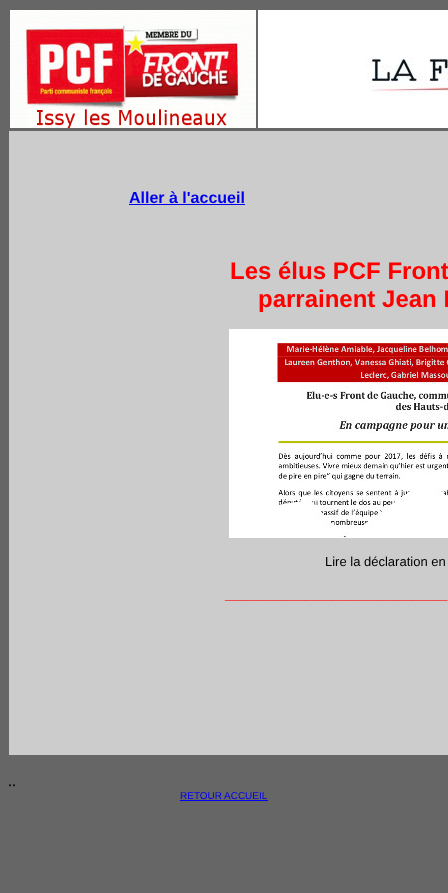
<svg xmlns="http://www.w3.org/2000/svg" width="448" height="893">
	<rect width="100%" height="100%" fill="#666666" />
	<rect x="10" y="10" width="246" height="1" fill="#FFFFFF" />
	<image x="10" y="11" width="246" height="117" href="assets/img1.png" />
	<rect x="258" y="10" width="190" height="118" fill="#FFFFFF" />
	<image x="366" y="57" width="82" height="38" href="assets/img2.png" />
	<rect x="9" y="131" width="439" height="624" fill="#CCCCCC" />
	<text x="129" y="203" font-family="Liberation Sans" font-size="16" font-weight="700" fill="#0000EE">Aller à l'accueil</text>
	<rect x="129" y="204" width="116" height="1" fill="#0000EE" />
	<g font-family="Liberation Sans" font-size="24" font-weight="700" fill="#FF0000">
		<text x="230" y="279">Les élus PCF Front</text>
		<text x="258" y="307">parrainent Jean L</text>
	</g>
	<image x="229" y="329" width="219" height="209" href="assets/img3.png" />
	<text x="325" y="566" font-family="Liberation Sans" font-size="13" fill="#000000">Lire la déclaration en</text>
	<text x="225" y="599" font-family="Liberation Sans" font-size="16" font-weight="700" fill="#FF0000">_________________________</text>
	<text x="8" y="786" font-family="Liberation Serif" font-size="16" fill="#000000">..</text>
	<text x="180" y="799" font-family="Liberation Sans" font-size="10" fill="#0000EE">RETOUR</text>
	<rect x="180" y="800" width="88" height="1" fill="#0000EE" />
	<text x="224" y="799" font-family="Liberation Sans" font-size="10" fill="#0000EE">ACCUEIL</text>
</svg>
